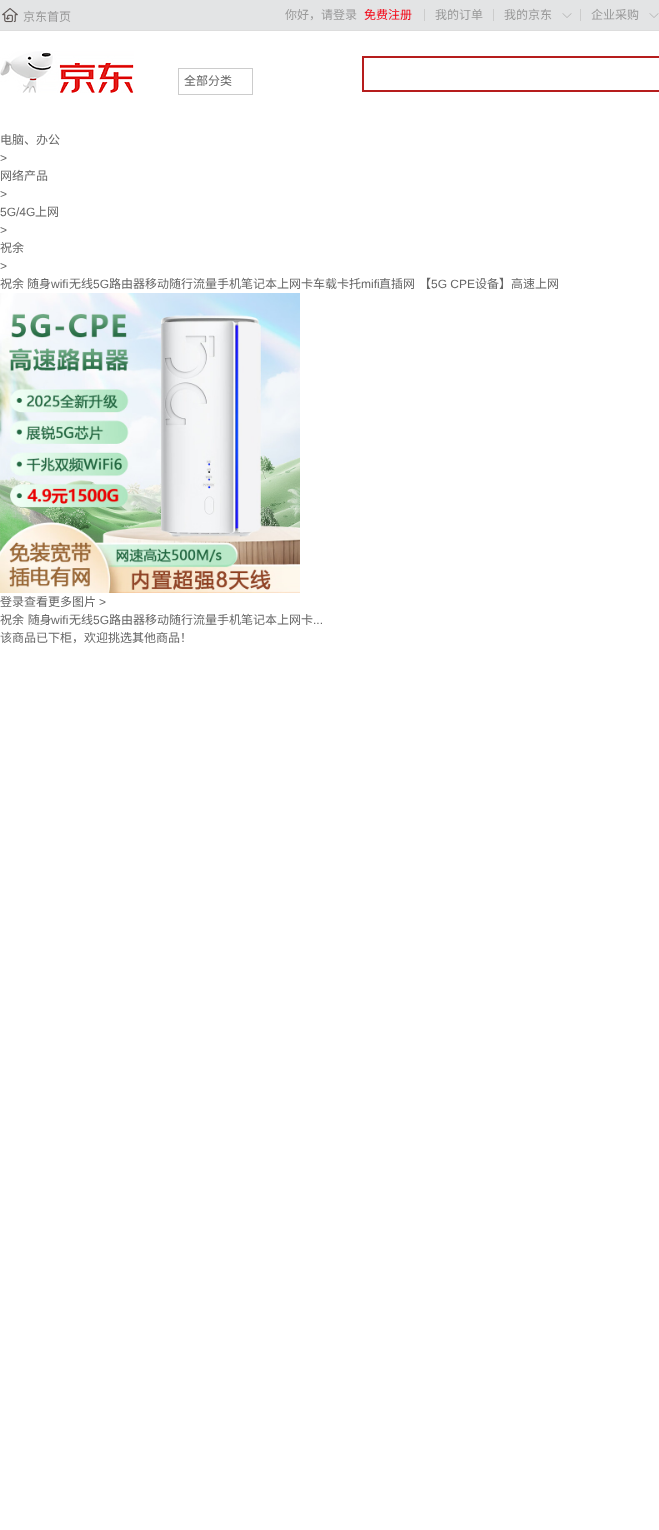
<svg xmlns="http://www.w3.org/2000/svg" width="659" height="1530">
	<rect width="100%" height="100%" fill="#FFFFFF" />
	<rect x="0" y="0" width="659" height="30" fill="#E3E4E5" />
	<rect x="0" y="30" width="659" height="1" fill="#DDDDDD" />
	<image x="2" y="8" width="16" height="15" href="assets/img1.png" />
	<g font-family="Noto Sans CJK SC" font-size="12" fill="#999999">
		<text x="23" y="21">京东首页</text>
		<text x="285" y="19">你好，请登录</text>
	</g>
	<text x="364" y="19" font-family="Noto Sans CJK SC" font-size="12" fill="#F30213">免费注册</text>
	<rect x="424" y="9" width="1" height="12" fill="#CCCCCC" />
	<text x="435" y="19" font-family="Noto Sans CJK SC" font-size="12" fill="#999999">我的订单</text>
	<rect x="493" y="9" width="1" height="12" fill="#CCCCCC" />
	<text x="504" y="19" font-family="Noto Sans CJK SC" font-size="12" fill="#999999">我的京东</text>
	<image x="562" y="13" width="10" height="5" href="assets/img2.png" />
	<rect x="580" y="9" width="1" height="12" fill="#CCCCCC" />
	<text x="591" y="19" font-family="Noto Sans CJK SC" font-size="12" fill="#999999">企业采购</text>
	<image x="649" y="13" width="10" height="5" href="assets/img2.png" />
	<image x="0" y="51" width="134" height="42" href="assets/img3.png" />
	<rect x="178.5" y="68.5" width="74" height="26" fill="none" stroke="#CCCCCC" />
	<text x="184" y="85" font-family="Noto Sans CJK SC" font-size="12" fill="#666666">全部分类</text>
	<rect x="362" y="56" width="297" height="2" fill="#B61D1D" />
	<rect x="362" y="90" width="297" height="2" fill="#B61D1D" />
	<rect x="362" y="56" width="2" height="36" fill="#B61D1D" />
	<text x="0" y="144" font-family="Noto Sans CJK SC" font-size="12" fill="#666666">电脑、办公</text>
	<text x="0" y="162" font-family="Liberation Sans" font-size="12" fill="#666666">&gt;</text>
	<text x="0" y="180" font-family="Noto Sans CJK SC" font-size="12" fill="#666666">网络产品</text>
	<g font-family="Liberation Sans" font-size="12" fill="#666666">
		<text x="0" y="198">&gt;</text>
		<text x="0" y="216">5G/4G</text>
	</g>
	<text x="35" y="216" font-family="Noto Sans CJK SC" font-size="12" fill="#666666">上网</text>
	<text x="0" y="234" font-family="Liberation Sans" font-size="12" fill="#666666">&gt;</text>
	<text x="0" y="252" font-family="Noto Sans CJK SC" font-size="12" fill="#666666">祝余</text>
	<text x="0" y="270" font-family="Liberation Sans" font-size="12" fill="#666666">&gt;</text>
	<g font-family="Noto Sans CJK SC" font-size="12" fill="#666666">
		<text x="0" y="288">祝余</text>
		<text x="27" y="288">随身</text>
	</g>
	<text x="51" y="288" font-family="Liberation Sans" font-size="12" fill="#666666">wifi</text>
	<text x="69" y="288" font-family="Noto Sans CJK SC" font-size="12" fill="#666666">无线</text>
	<text x="93" y="288" font-family="Liberation Sans" font-size="12" fill="#666666">5G</text>
	<text x="109" y="288" font-family="Noto Sans CJK SC" font-size="12" fill="#666666">路由器移动随行流量手机笔记本上网卡车载卡托</text>
	<text x="361" y="288" font-family="Liberation Sans" font-size="12" fill="#666666">mifi</text>
	<g font-family="Noto Sans CJK SC" font-size="12" fill="#666666">
		<text x="379" y="288">直插网</text>
		<text x="419" y="288">【</text>
	</g>
	<text x="431" y="288" font-family="Liberation Sans" font-size="12" fill="#666666">5G CPE</text>
	<text x="475" y="288" font-family="Noto Sans CJK SC" font-size="12" fill="#666666">设备】高速上网</text>
	<image x="0" y="293" width="300" height="300" href="assets/img4.png" />
	<text x="0" y="606" font-family="Noto Sans CJK SC" font-size="12" fill="#666666">登录查看更多图片</text>
	<text x="99" y="606" font-family="Liberation Sans" font-size="12" fill="#666666">&gt;</text>
	<text x="0" y="624" word-spacing="1" font-family="Noto Sans CJK SC" font-size="12" fill="#666666">祝余 随身</text>
	<text x="51" y="624" font-family="Liberation Sans" font-size="12" fill="#666666">wifi</text>
	<text x="69" y="624" font-family="Noto Sans CJK SC" font-size="12" fill="#666666">无线</text>
	<text x="93" y="624" font-family="Liberation Sans" font-size="12" fill="#666666">5G</text>
	<text x="109" y="624" font-family="Noto Sans CJK SC" font-size="12" fill="#666666">路由器移动随行流量手机笔记本上网卡</text>
	<text x="313" y="624" font-family="Liberation Sans" font-size="12" fill="#666666">...</text>
	<text x="0" y="642" font-family="Noto Sans CJK SC" font-size="12" fill="#666666">该商品已下柜，欢迎挑选其他商品！</text>
</svg>
